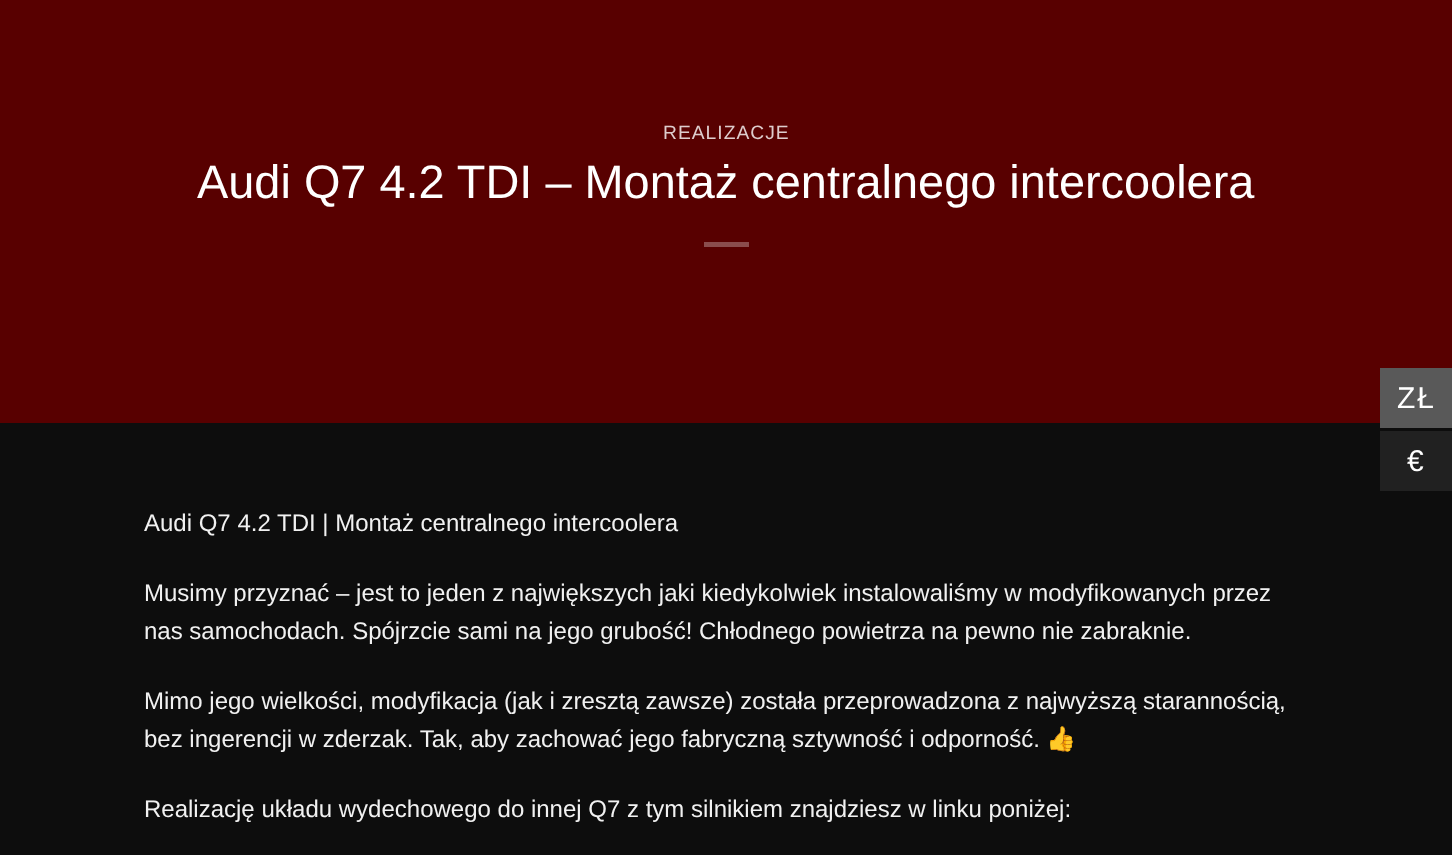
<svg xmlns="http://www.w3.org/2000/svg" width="1452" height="855">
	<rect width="100%" height="100%" fill="#580000" />
	<text x="663" y="139" font-family="Liberation Sans" font-size="19.25" letter-spacing="1" fill="#DECCCC">REALIZACJE</text>
	<text x="197" y="198" font-family="Liberation Sans" font-size="46.9" fill="#FFFFFF">Audi Q7 4.2 TDI – Montaż centralnego intercoolera</text>
	<rect x="704" y="242" width="45" height="5" fill="#8A4D4D" />
	<rect x="0" y="423" width="1452" height="432" fill="#0D0D0D" />
	<g font-family="Liberation Sans" font-size="24" fill="#F1F1F1">
		<text x="144" y="531">Audi Q7 4.2 TDI | Montaż centralnego intercoolera</text>
		<text x="144" y="601">Musimy przyznać – jest to jeden z największych jaki kiedykolwiek instalowaliśmy w modyfikowanych przez</text>
		<text x="144" y="639">nas samochodach. Spójrzcie sami na jego grubość! Chłodnego powietrza na pewno nie zabraknie.</text>
		<text x="144" y="709">Mimo jego wielkości, modyfikacja (jak i zresztą zawsze) została przeprowadzona z najwyższą starannością,</text>
		<text x="144" y="747">bez ingerencji w zderzak. Tak, aby zachować jego fabryczną sztywność i odporność.</text>
	</g>
	<text x="1046" y="747" font-family="Noto Color Emoji" font-size="24" fill="#F1F1F1">👍</text>
	<text x="144" y="817" font-family="Liberation Sans" font-size="24" fill="#F1F1F1">Realizację układu wydechowego do innej Q7 z tym silnikiem znajdziesz w linku poniżej:</text>
	<rect x="1380" y="368" width="72" height="60" fill="#595959" />
	<text x="1397" y="408" font-family="Liberation Sans" font-size="30" letter-spacing="2" fill="#FFFFFF">ZŁ</text>
	<rect x="1380" y="431" width="72" height="60" fill="#212121" />
	<text x="1407" y="471" font-family="Liberation Sans" font-size="30" letter-spacing="2" fill="#FFFFFF">€</text>
</svg>
